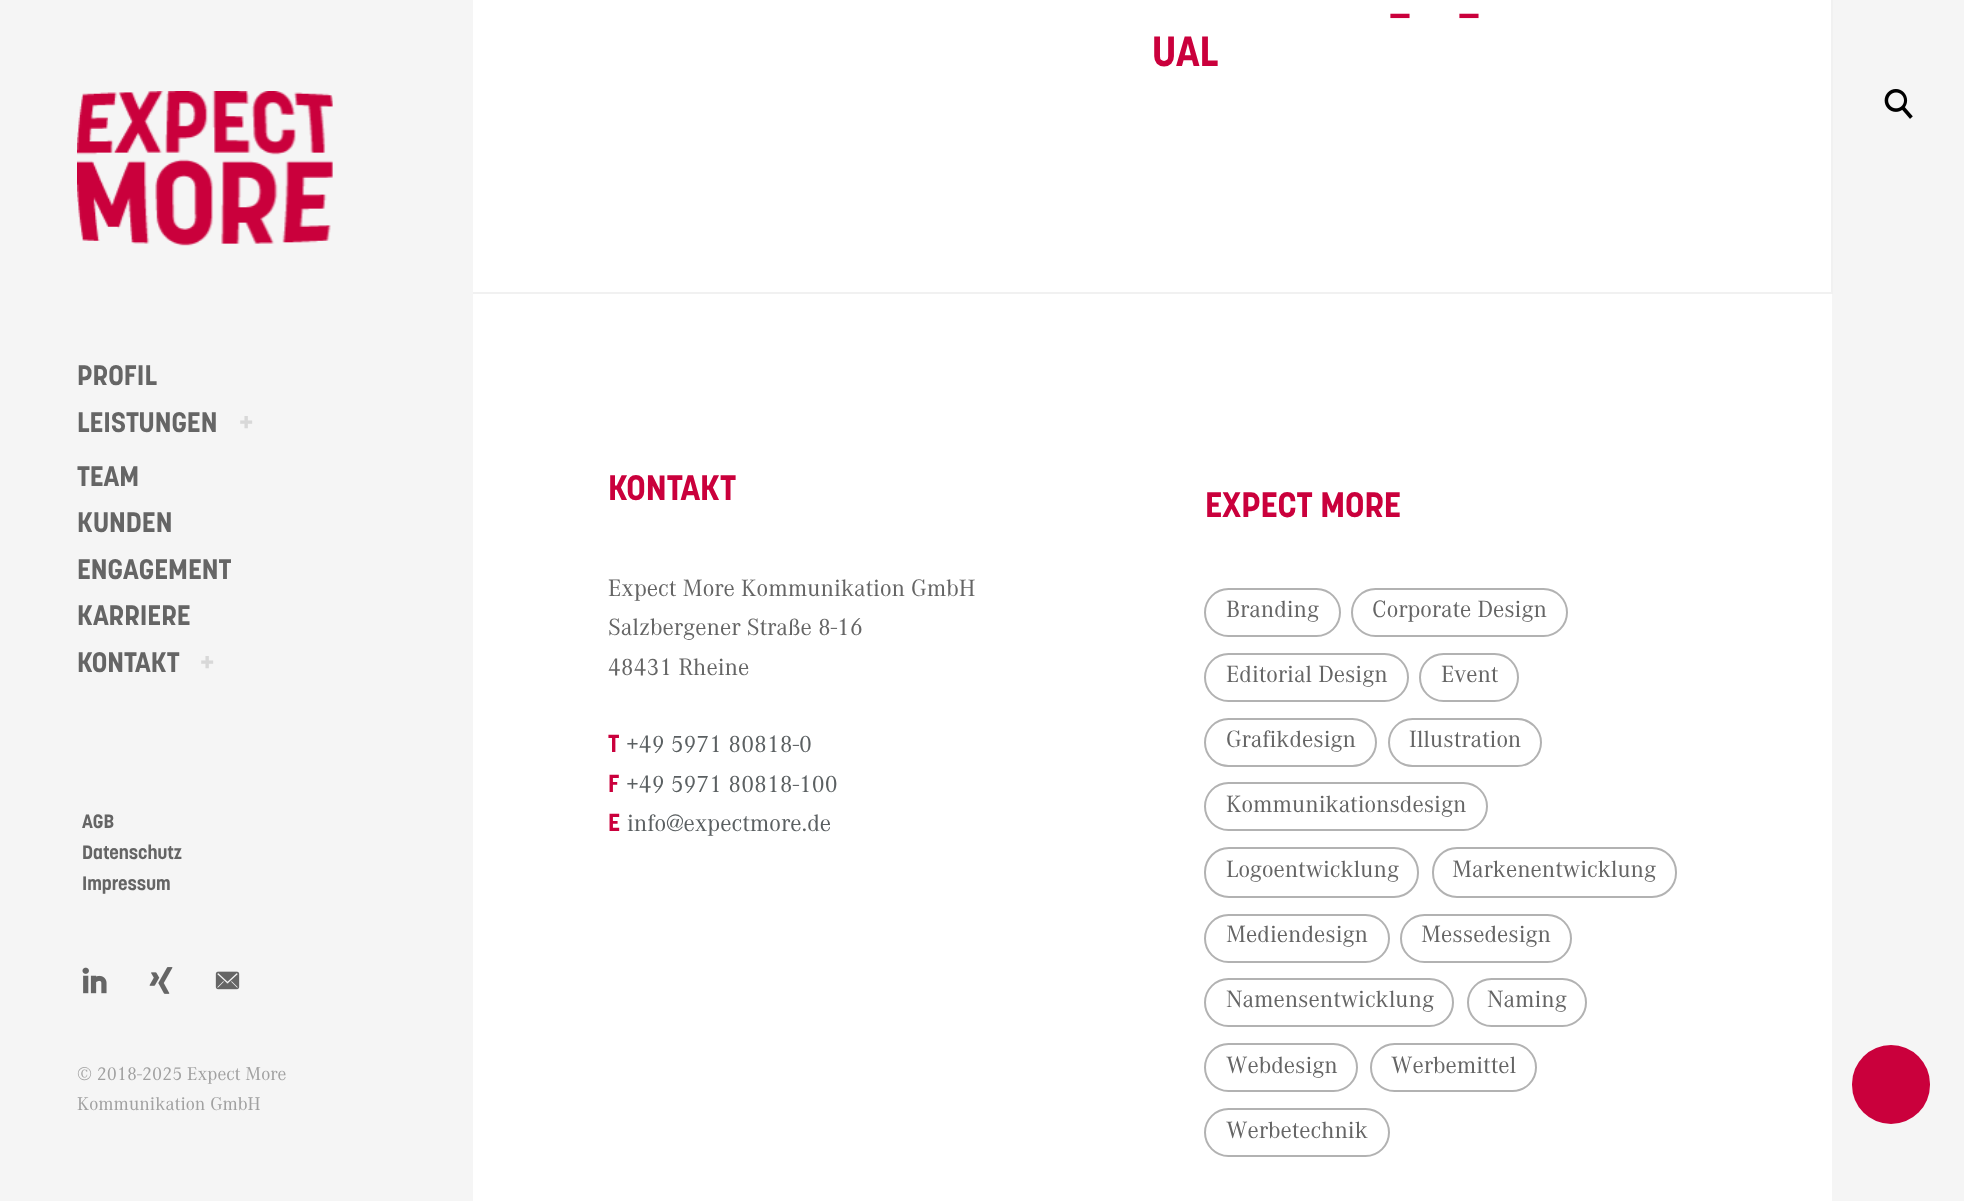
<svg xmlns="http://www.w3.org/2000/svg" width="1964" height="1201">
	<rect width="100%" height="100%" fill="#F5F5F5" />
	<rect x="473" y="0" width="1359" height="1201" fill="#FFFFFF" />
	<rect x="1831" y="0" width="2" height="294" fill="#F1F1F1" />
	<rect x="473" y="292" width="1359" height="2" fill="#F1F1F1" />
	<g font-family="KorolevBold" font-size="42" font-weight="700" fill="#CA003C">
		<text x="1389" y="11">_</text>
		<text x="1458" y="11">_</text>
		<text x="1152" y="66">UAL</text>
	</g>
	<text x="608" y="500" font-family="KorolevBold" font-size="35" font-weight="700" fill="#CA003C">KONTAKT</text>
	<g font-family="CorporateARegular" font-size="24.6" fill="#656565">
		<text x="608" y="596">Expect More Kommunikation GmbH</text>
		<text x="608" y="635">Salzbergener Straße 8-16</text>
		<text x="608" y="675">48431 Rheine</text>
	</g>
	<text x="608" y="752" font-family="KorolevBold" font-size="24.6" font-weight="700" fill="#CA003C">T</text>
	<text x="626" y="752" font-family="CorporateARegular" font-size="24.6" fill="#5B6062">+49 5971 80818-0</text>
	<text x="608" y="792" font-family="KorolevBold" font-size="24.6" font-weight="700" fill="#CA003C">F</text>
	<text x="626" y="792" font-family="CorporateARegular" font-size="24.6" fill="#5B6062">+49 5971 80818-100</text>
	<text x="608" y="831" font-family="KorolevBold" font-size="24.6" font-weight="700" fill="#CA003C">E</text>
	<text x="627" y="831" font-family="CorporateARegular" font-size="24.6" fill="#5B6062">info@expectmore.de</text>
	<text x="1205" y="517" font-family="KorolevBold" font-size="35" font-weight="700" fill="#CA003C">EXPECT MORE</text>
	<rect x="1205" y="589" width="135" height="47" rx="23.5" fill="none" stroke="#B2B2B2" stroke-width="2" />
	<text x="1226" y="617" font-family="CorporateARegular" font-size="24.5" fill="#656565">Branding</text>
	<rect x="1352" y="589" width="215" height="47" rx="23.5" fill="none" stroke="#B2B2B2" stroke-width="2" />
	<text x="1372" y="617" font-family="CorporateARegular" font-size="24.5" fill="#656565">Corporate Design</text>
	<rect x="1205" y="654" width="203" height="47" rx="23.5" fill="none" stroke="#B2B2B2" stroke-width="2" />
	<text x="1226" y="682" font-family="CorporateARegular" font-size="24.5" fill="#656565">Editorial Design</text>
	<rect x="1420" y="654" width="98" height="47" rx="23.5" fill="none" stroke="#B2B2B2" stroke-width="2" />
	<text x="1441" y="682" font-family="CorporateARegular" font-size="24.5" fill="#656565">Event</text>
	<rect x="1205" y="719" width="171" height="47" rx="23.5" fill="none" stroke="#B2B2B2" stroke-width="2" />
	<text x="1226" y="747" font-family="CorporateARegular" font-size="24.5" fill="#656565">Grafikdesign</text>
	<rect x="1389" y="719" width="152" height="47" rx="23.5" fill="none" stroke="#B2B2B2" stroke-width="2" />
	<text x="1409" y="747" font-family="CorporateARegular" font-size="24.5" fill="#656565">Illustration</text>
	<rect x="1205" y="783" width="282" height="47" rx="23.5" fill="none" stroke="#B2B2B2" stroke-width="2" />
	<text x="1226" y="812" font-family="CorporateARegular" font-size="24.5" fill="#656565">Kommunikationsdesign</text>
	<rect x="1205" y="848" width="213" height="49" rx="24" fill="none" stroke="#B2B2B2" stroke-width="2" />
	<text x="1226" y="877" font-family="CorporateARegular" font-size="24.5" fill="#656565">Logoentwicklung</text>
	<rect x="1433" y="848" width="243" height="49" rx="24" fill="none" stroke="#B2B2B2" stroke-width="2" />
	<text x="1452" y="877" font-family="CorporateARegular" font-size="24.5" fill="#656565">Markenentwicklung</text>
	<rect x="1205" y="915" width="184" height="47" rx="23.5" fill="none" stroke="#B2B2B2" stroke-width="2" />
	<text x="1226" y="942" font-family="CorporateARegular" font-size="24.5" fill="#656565">Mediendesign</text>
	<rect x="1401" y="915" width="170" height="47" rx="23.5" fill="none" stroke="#B2B2B2" stroke-width="2" />
	<text x="1421" y="942" font-family="CorporateARegular" font-size="24.5" fill="#656565">Messedesign</text>
	<rect x="1205" y="979" width="248" height="47" rx="23.5" fill="none" stroke="#B2B2B2" stroke-width="2" />
	<text x="1226" y="1007" font-family="CorporateARegular" font-size="24.5" fill="#656565">Namensentwicklung</text>
	<rect x="1468" y="979" width="118" height="47" rx="23.5" fill="none" stroke="#B2B2B2" stroke-width="2" />
	<text x="1487" y="1007" font-family="CorporateARegular" font-size="24.5" fill="#656565">Naming</text>
	<rect x="1205" y="1044" width="152" height="47" rx="23.5" fill="none" stroke="#B2B2B2" stroke-width="2" />
	<text x="1226" y="1073" font-family="CorporateARegular" font-size="24.5" fill="#656565">Webdesign</text>
	<rect x="1371" y="1044" width="165" height="47" rx="23.5" fill="none" stroke="#B2B2B2" stroke-width="2" />
	<text x="1391" y="1073" font-family="CorporateARegular" font-size="24.5" fill="#656565">Werbemittel</text>
	<rect x="1205" y="1109" width="184" height="47" rx="23.5" fill="none" stroke="#B2B2B2" stroke-width="2" />
	<text x="1226" y="1138" font-family="CorporateARegular" font-size="24.5" fill="#656565">Werbetechnik</text>
	<image x="1884" y="89" width="29" height="30" href="assets/img1.png" />
	<image x="77" y="91" width="256" height="155" href="assets/img2.png" />
	<g font-family="KorolevBold" font-size="28" font-weight="700" fill="#656565">
		<text x="77" y="385">PROFIL</text>
		<text x="77" y="432">LEISTUNGEN</text>
	</g>
	<text x="239" y="432" font-family="KorolevBold" font-size="28" font-weight="700" fill="#D8D8D8">+</text>
	<g font-family="KorolevBold" font-size="28" font-weight="700" fill="#656565">
		<text x="77" y="486">TEAM</text>
		<text x="77" y="532">KUNDEN</text>
		<text x="77" y="579">ENGAGEMENT</text>
		<text x="77" y="625">KARRIERE</text>
		<text x="77" y="672">KONTAKT</text>
	</g>
	<text x="200" y="672" font-family="KorolevBold" font-size="28" font-weight="700" fill="#D8D8D8">+</text>
	<g font-family="KorolevBold" font-size="19.25" font-weight="700" fill="#656565">
		<text x="82" y="828">AGB</text>
		<text x="82" y="859">Datenschutz</text>
		<text x="82" y="890">Impressum</text>
	</g>
	<image x="82" y="967" width="25" height="27" href="assets/img3.png" />
	<image x="149" y="967" width="24" height="27" href="assets/img4.png" />
	<image x="215" y="971" width="25" height="19" href="assets/img5.png" />
	<g font-family="CorporateARegular" font-size="19.25" fill="#A1A1A1">
		<text x="77" y="1080">© 2018-2025 Expect More</text>
		<text x="77" y="1110">Kommunikation GmbH</text>
	</g>
	<rect x="1852" y="1045" width="78" height="79" rx="39" fill="#CA003C" />
</svg>
